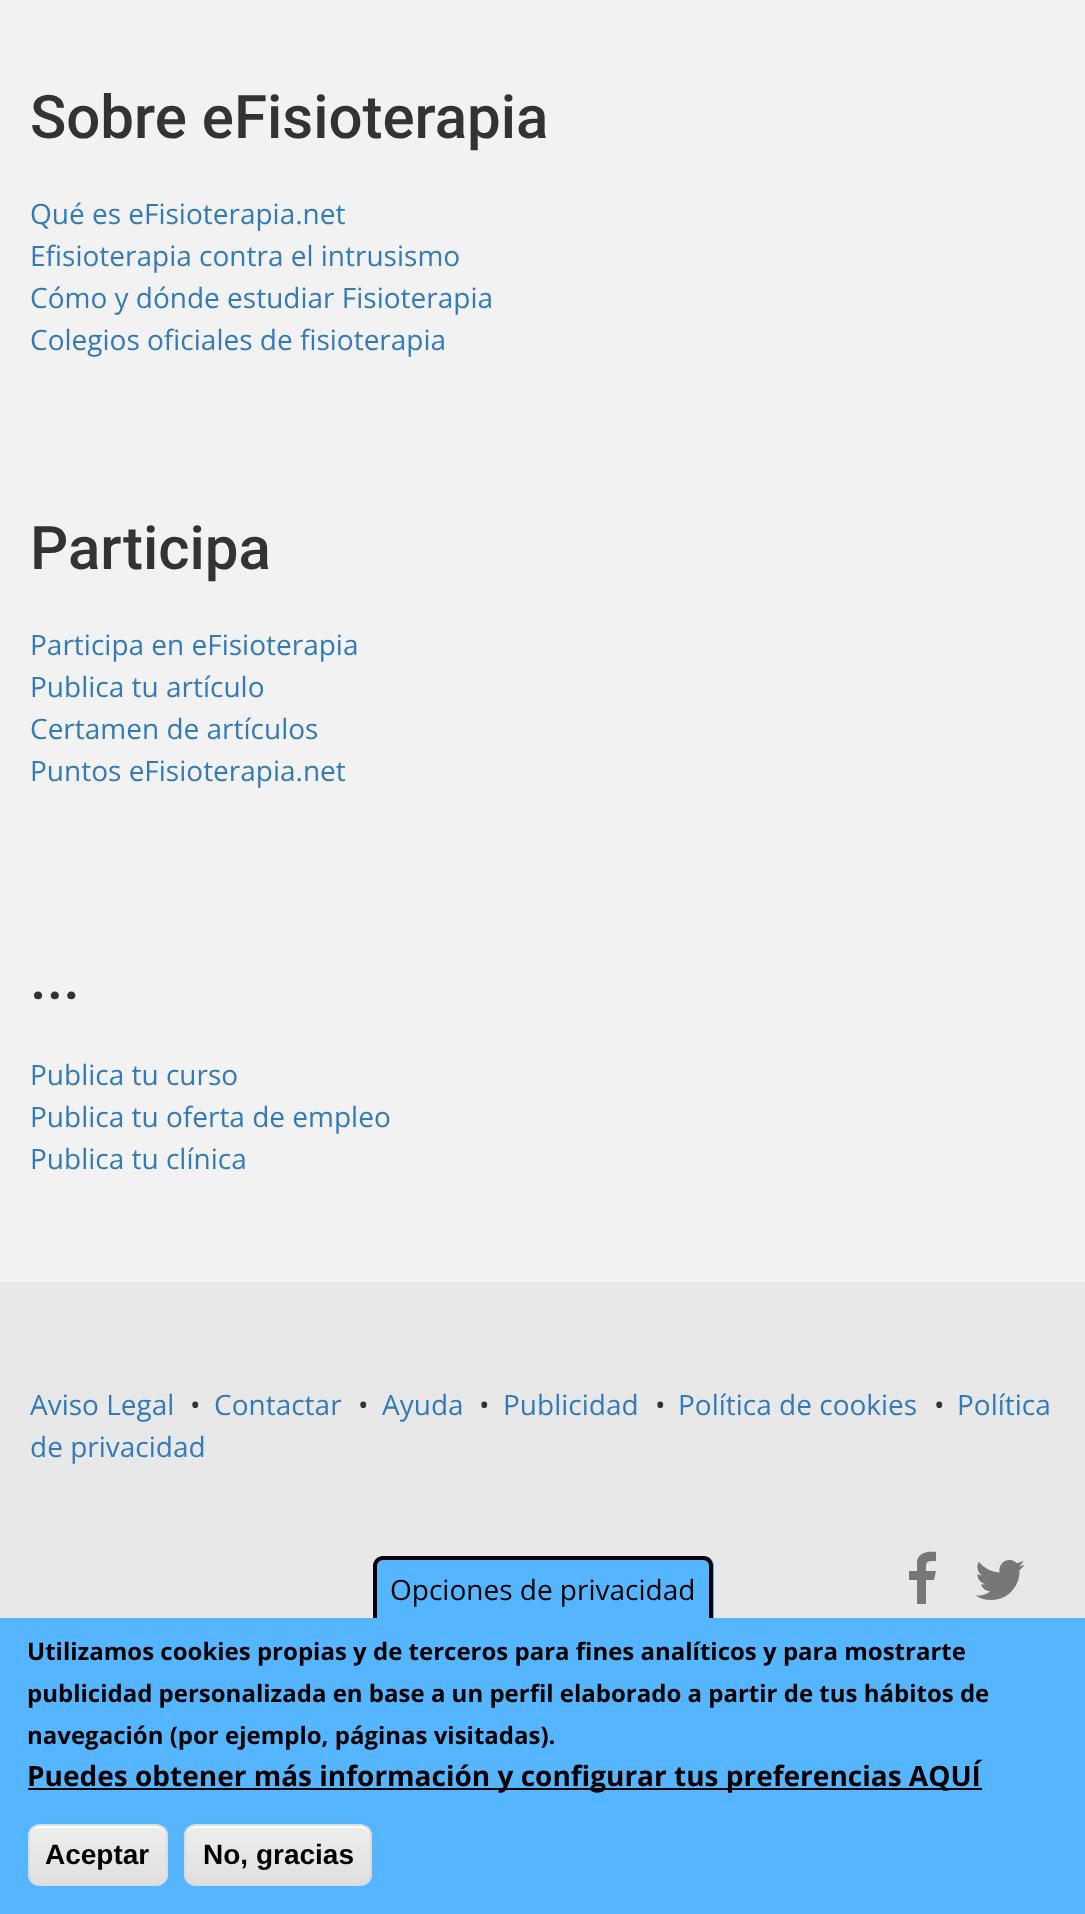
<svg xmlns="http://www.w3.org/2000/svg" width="1085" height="1914">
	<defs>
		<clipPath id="clip1"><rect x="28" y="1824" width="140" height="62" rx="12" /></clipPath>
		<linearGradient id="g1" gradientUnits="userSpaceOnUse" x1="98" y1="1826" x2="98" y2="1884"><stop offset="0.05" stop-color="#EDEDED" /><stop offset="1" stop-color="#DFDFDF" /></linearGradient>
		<clipPath id="clip2"><rect x="184" y="1824" width="188" height="62" rx="12" /></clipPath>
		<linearGradient id="g2" gradientUnits="userSpaceOnUse" x1="278" y1="1826" x2="278" y2="1884"><stop offset="0.05" stop-color="#EDEDED" /><stop offset="1" stop-color="#DFDFDF" /></linearGradient>
	</defs>
	<rect width="100%" height="100%" fill="#F2F2F2" />
	<text x="30" y="138" font-family="Roboto" font-size="60" font-weight="500" fill="#333333">Sobre eFisioterapia</text>
	<g font-family="Open Sans" font-size="28" fill="#337AB7">
		<text x="30" y="224">Qué es eFisioterapia.net</text>
		<text x="30" y="266">Efisioterapia contra el intrusismo</text>
		<text x="30" y="308">Cómo y dónde estudiar Fisioterapia</text>
		<text x="30" y="350">Colegios oficiales de fisioterapia</text>
	</g>
	<text x="30" y="569" font-family="Roboto" font-size="60" font-weight="500" fill="#333333">Participa</text>
	<g font-family="Open Sans" font-size="28" fill="#337AB7">
		<text x="30" y="655">Participa en eFisioterapia</text>
		<text x="30" y="697">Publica tu artículo</text>
		<text x="30" y="739">Certamen de artículos</text>
		<text x="30" y="781">Puntos eFisioterapia.net</text>
	</g>
	<text x="30" y="999" font-family="Roboto" font-size="60" font-weight="500" fill="#333333">...</text>
	<g font-family="Open Sans" font-size="28" fill="#337AB7">
		<text x="30" y="1085">Publica tu curso</text>
		<text x="30" y="1127">Publica tu oferta de empleo</text>
		<text x="30" y="1169">Publica tu clínica</text>
	</g>
	<rect x="0" y="1282" width="1085" height="336" fill="#E8E8E8" />
	<text x="30" y="1415" font-family="Open Sans" font-size="28" fill="#337AB7">Aviso Legal</text>
	<text x="190" y="1415" font-family="Open Sans" font-size="28" fill="#333333">•</text>
	<text x="214" y="1415" font-family="Open Sans" font-size="28" fill="#337AB7">Contactar</text>
	<text x="358" y="1415" font-family="Open Sans" font-size="28" fill="#333333">•</text>
	<text x="382" y="1415" font-family="Open Sans" font-size="28" fill="#337AB7">Ayuda</text>
	<text x="479" y="1415" font-family="Open Sans" font-size="28" fill="#333333">•</text>
	<text x="503" y="1415" font-family="Open Sans" font-size="28" fill="#337AB7">Publicidad</text>
	<text x="655" y="1415" font-family="Open Sans" font-size="28" fill="#333333">•</text>
	<text x="678" y="1415" font-family="Open Sans" font-size="28" fill="#337AB7">Política de cookies</text>
	<text x="934" y="1415" font-family="Open Sans" font-size="28" fill="#333333">•</text>
	<g font-family="Open Sans" font-size="28" fill="#337AB7">
		<text x="957" y="1415">Política</text>
		<text x="30" y="1457">de privacidad</text>
	</g>
	<path d="M936 1552V1561C926 1561 926 1561 926 1571H936L934 1580H926V1604H917V1580H909V1571H917V1561C919 1552 928 1551 936 1552Z" fill="#777777" />
	<image x="975" y="1560" width="50" height="40" href="assets/img1.png" />
	<rect x="0" y="1618" width="1085" height="296" fill="#56B5FF" />
	<path d="M384 1556H704C709.5 1556 714 1560.5 714 1566V1618H374V1566C374 1560.5 378.5 1556 384 1556Z" fill="#56B5FF" />
	<path d="M383 1556H703C709 1556 713 1560 713 1566V1618H373V1566C373 1560 378 1556 383 1556ZM383 1560H703C707 1560 709 1563 709 1566V1618H377V1566C377 1563 380 1560 383 1560Z" fill="#000000" fill-rule="evenodd" />
	<text x="390" y="1600" font-family="Open Sans" font-size="28" fill="#000000">Opciones de privacidad</text>
	<g font-family="Open Sans" font-size="24" font-weight="700" fill="#000000">
		<text x="27" y="1660">Utilizamos cookies propias y de terceros para fines analíticos y para mostrarte</text>
		<text x="27" y="1702">publicidad personalizada en base a un perfil elaborado a partir de tus hábitos de</text>
		<text x="27" y="1744">navegación (por ejemplo, páginas visitadas).</text>
	</g>
	<rect x="28" y="1788" width="954" height="2" fill="#000000" />
	<text x="27" y="1786" font-family="Open Sans" font-size="28" font-weight="700" fill="#000000">Puedes obtener más información y configurar tus preferencias AQUÍ</text>
	<g clip-path="url(#clip1)">
		<rect x="28" y="1826" width="140" height="58" fill="url(#g1)" />
	</g>
	<path d="M40 1828H156C162 1828 166 1832 166 1838C166 1821 149 1826 137 1826H59C47 1826 30 1821 30 1838C30 1832 34 1828 40 1828Z" fill="#FFFFFF" />
	<rect x="29" y="1825" width="138" height="60" rx="11" fill="none" stroke="#DCDCDC" stroke-width="2" />
	<text x="45" y="1864" font-family="Liberation Sans" font-size="28" font-weight="700" fill="#000000">Aceptar</text>
	<g clip-path="url(#clip2)">
		<rect x="184" y="1826" width="188" height="58" fill="url(#g2)" />
	</g>
	<path d="M196 1828H360C366 1828 370 1832 370 1838V1836C370 1830 366 1826 360 1826H196C190 1826 186 1830 186 1836V1838C186 1832 190 1828 196 1828Z" fill="#FFFFFF" />
	<rect x="185" y="1825" width="186" height="60" rx="11" fill="none" stroke="#DCDCDC" stroke-width="2" />
	<text x="203" y="1864" font-family="Liberation Sans" font-size="28" font-weight="700" fill="#000000">No, gracias</text>
</svg>
